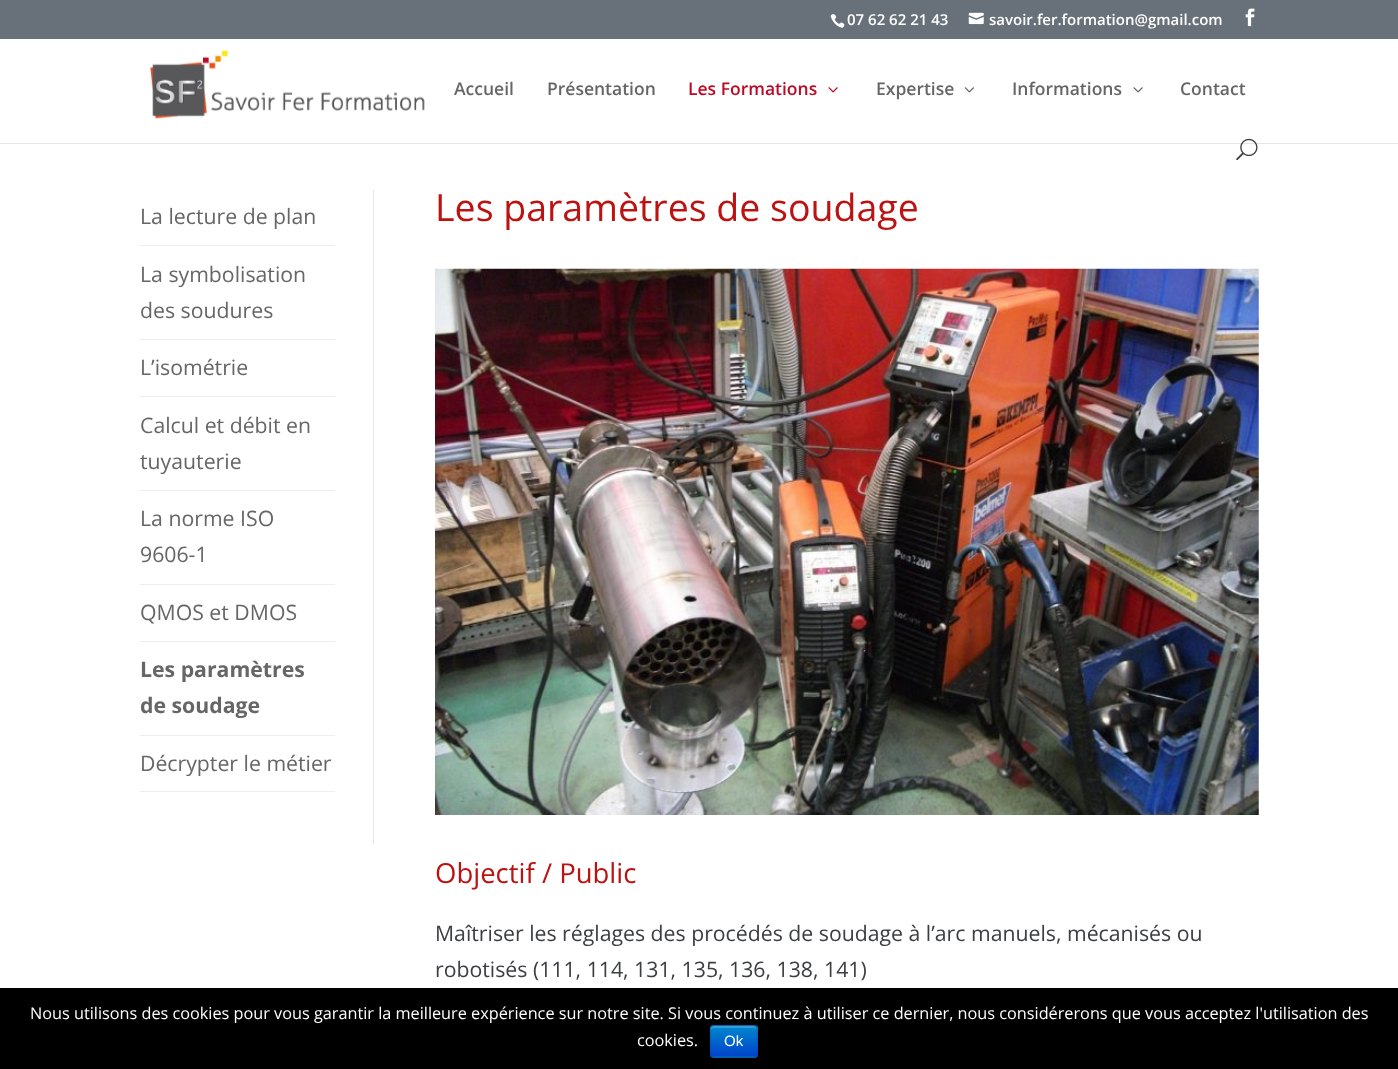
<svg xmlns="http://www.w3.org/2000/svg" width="1398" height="1069">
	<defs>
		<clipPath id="clip1"><rect x="710" y="1025" width="48" height="33" rx="4" /></clipPath>
		<linearGradient id="g1" gradientUnits="userSpaceOnUse" x1="734" y1="1026" x2="734" y2="1056"><stop offset="0" stop-color="#0088CC" /><stop offset="1" stop-color="#0044CC" /></linearGradient>
	</defs>
	<rect width="100%" height="100%" fill="#FFFFFF" />
	<rect x="0" y="0" width="1398" height="39" fill="#68707A" />
	<image x="830" y="14" width="15" height="14" href="assets/img1.png" />
	<text x="847" y="25" font-family="Open Sans" font-size="15" font-weight="600" fill="#FFFFFF">07 62 62 21 43</text>
	<image x="968" y="12" width="16" height="13" href="assets/img2.png" />
	<text x="989" y="25" font-family="Open Sans" font-size="15" font-weight="600" fill="#FFFFFF">savoir.fer.formation@gmail.com</text>
	<image x="1245" y="8" width="10" height="19" href="assets/img3.png" />
	<path d="M0 142V144H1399V40V142Z" fill="#E6E6E6" />
	<rect x="0" y="142" width="1398" height="1" fill="#FFFFFF" />
	<image x="150" y="50" width="275" height="69" href="assets/img4.png" />
	<g font-family="Open Sans" font-size="17.5" font-weight="600" fill="#666666">
		<text x="454" y="95">Accueil</text>
		<text x="547" y="95">Présentation</text>
	</g>
	<text x="688" y="95" font-family="Open Sans" font-size="17.5" font-weight="600" fill="#BD0926">Les Formations</text>
	<image x="828" y="87" width="10" height="6" href="assets/img5.png" />
	<text x="876" y="95" font-family="Open Sans" font-size="17.5" font-weight="600" fill="#666666">Expertise</text>
	<image x="964" y="87" width="10" height="6" href="assets/img6.png" />
	<text x="1012" y="95" font-family="Open Sans" font-size="17.5" font-weight="600" fill="#666666">Informations</text>
	<image x="1133" y="87" width="10" height="6" href="assets/img7.png" />
	<text x="1180" y="95" font-family="Open Sans" font-size="17.5" font-weight="600" fill="#666666">Contact</text>
	<image x="1236" y="138" width="22" height="23" href="assets/img8.png" />
	<rect x="373" y="190" width="1" height="654" fill="#E6E6E6" />
	<rect x="140" y="245" width="195" height="1" fill="#EEEEEE" />
	<text x="140" y="224" font-family="Open Sans" font-size="21.25" fill="#666666">La lecture de plan</text>
	<rect x="140" y="339" width="195" height="1" fill="#EEEEEE" />
	<g font-family="Open Sans" font-size="21.25" fill="#666666">
		<text x="140" y="282">La symbolisation</text>
		<text x="140" y="318">des soudures</text>
	</g>
	<rect x="140" y="396" width="195" height="1" fill="#EEEEEE" />
	<text x="140" y="375" font-family="Open Sans" font-size="21.25" fill="#666666">L’isométrie</text>
	<rect x="140" y="490" width="195" height="1" fill="#EEEEEE" />
	<g font-family="Open Sans" font-size="21.25" fill="#666666">
		<text x="140" y="433">Calcul et débit en</text>
		<text x="140" y="469">tuyauterie</text>
	</g>
	<rect x="140" y="584" width="195" height="1" fill="#EEEEEE" />
	<g font-family="Open Sans" font-size="21.25" fill="#666666">
		<text x="140" y="526">La norme ISO</text>
		<text x="140" y="562">9606-1</text>
	</g>
	<rect x="140" y="641" width="195" height="1" fill="#EEEEEE" />
	<text x="140" y="620" font-family="Open Sans" font-size="21.25" fill="#666666">QMOS et DMOS</text>
	<rect x="140" y="735" width="195" height="1" fill="#EEEEEE" />
	<g font-family="Open Sans" font-size="21.25" font-weight="700" fill="#666666">
		<text x="140" y="677">Les paramètres</text>
		<text x="140" y="713">de soudage</text>
	</g>
	<rect x="140" y="791" width="195" height="1" fill="#EEEEEE" />
	<text x="140" y="771" font-family="Open Sans" font-size="21.25" fill="#666666">Décrypter le métier</text>
	<text x="435" y="221" font-family="Open Sans" font-size="37.5" fill="#BC1212">Les paramètres de soudage</text>
	<image x="435" y="268" width="824" height="547" href="assets/img9.png" />
	<text x="435" y="883" font-family="Open Sans" font-size="27.5" fill="#BC1212">Objectif / Public</text>
	<g font-family="Open Sans" font-size="21.25" fill="#3C3E41">
		<text x="435" y="941">Maîtriser les réglages des procédés de soudage à l’arc manuels, mécanisés ou</text>
		<text x="435" y="977">robotisés (111, 114, 131, 135, 136, 138, 141)</text>
	</g>
	<rect x="0" y="988" width="1398" height="81" fill="#000000" />
	<g font-family="Open Sans" font-size="16.25" fill="#FFFFFF">
		<text x="30" y="1019">Nous utilisons des cookies pour vous garantir la meilleure expérience sur notre site. Si vous continuez à utiliser ce dernier, nous considérerons que vous acceptez l'utilisation des</text>
		<text x="637" y="1046">cookies.</text>
	</g>
	<rect x="710" y="1025" width="48" height="33" rx="4" fill="#006DCC" />
	<g clip-path="url(#clip1)">
		<rect x="710" y="1026" width="48" height="30" fill="url(#g1)" />
	</g>
	<path d="M714 1028H754C755 1028 756 1029 756 1030C756 1024 752 1026 747 1026H720C715 1026 711 1024 711 1030C711 1029 712 1028 714 1028Z" fill="#FFFFFF" fill-opacity="0.2" />
	<path d="M756 1056L754 1057H714L711.5 1056" fill="none" stroke="#005299" stroke-width="1.2" />
	<path d="M711.5 1056C709.5 1054 710.5 1044 710.5 1041C710.5 1026.5 707 1025.5 720.5 1025.5H747C760.5 1025.5 757 1026.5 757 1041C757 1044 758 1054 756 1056" fill="none" stroke="#000000" stroke-opacity="0.1" stroke-width="1.2" />
	<text x="724" y="1046" font-family="Liberation Sans" font-size="15" fill="#FFFFFF">Ok</text>
</svg>
